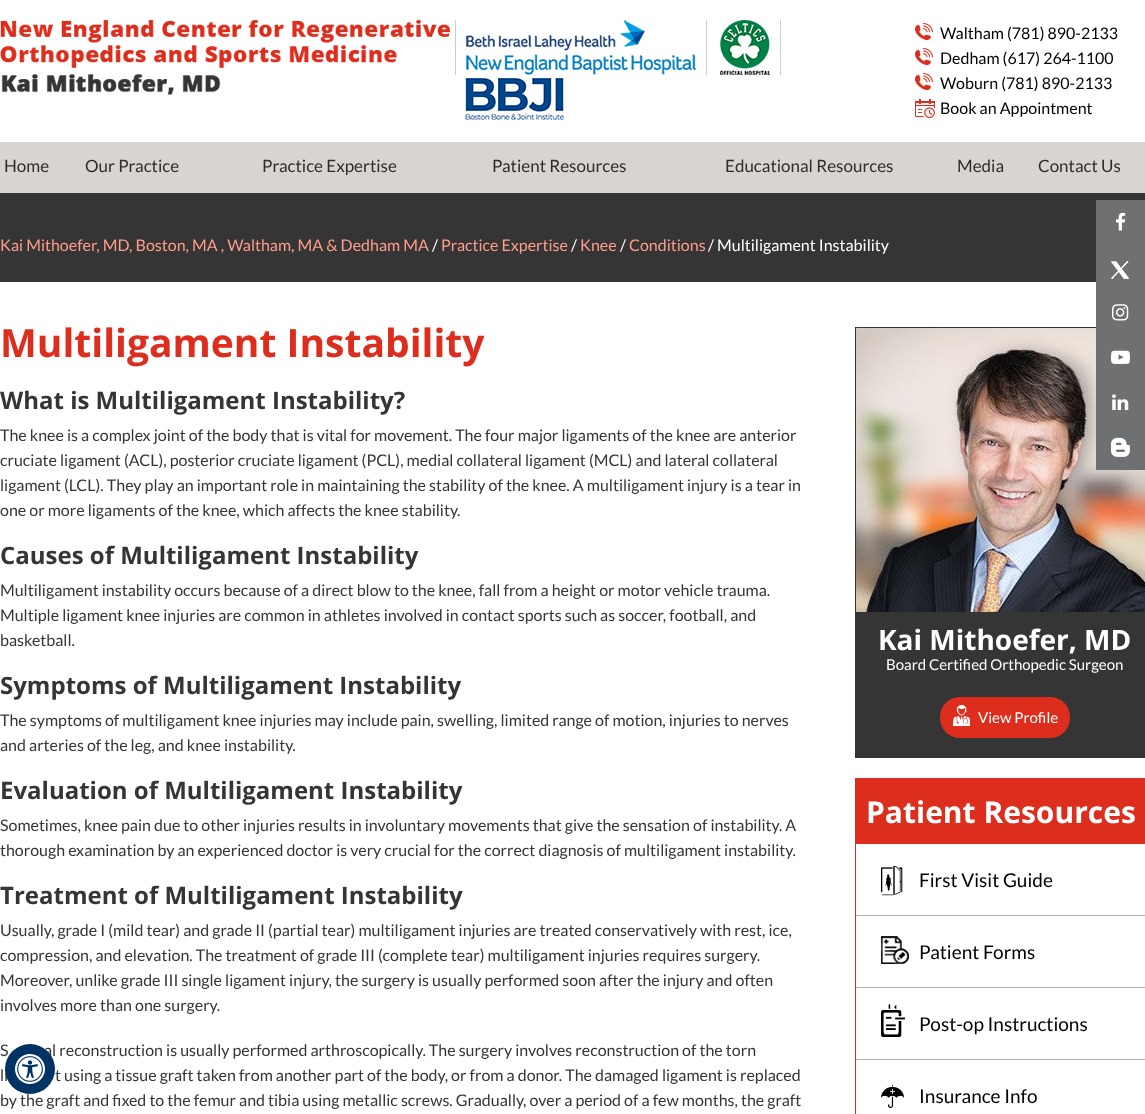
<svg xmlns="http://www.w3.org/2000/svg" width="1145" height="1114">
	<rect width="100%" height="100%" fill="#FFFFFF" />
	<image x="0" y="20" width="450" height="75" href="assets/img1.png" />
	<rect x="706" y="20" width="1" height="55" fill="#CCCCCC" />
	<rect x="455" y="20" width="1" height="55" fill="#CCCCCC" />
	<image x="466" y="20" width="230" height="55" href="assets/img2.png" />
	<rect x="780" y="20" width="1" height="55" fill="#CCCCCC" />
	<image x="720" y="20" width="50" height="55" href="assets/img3.png" />
	<image x="465" y="75" width="99" height="45" href="assets/img4.png" />
	<image x="915" y="23" width="20" height="22" href="assets/img5.png" />
	<text x="940" y="39" font-family="Lato" font-size="16" fill="#000000">Waltham (781) 890-2133</text>
	<image x="915" y="48" width="20" height="22" href="assets/img5.png" />
	<text x="940" y="64" font-family="Lato" font-size="16" fill="#000000">Dedham (617) 264-1100</text>
	<image x="915" y="73" width="20" height="22" href="assets/img5.png" />
	<text x="940" y="89" font-family="Lato" font-size="16" fill="#000000">Woburn (781) 890-2133</text>
	<image x="915" y="98" width="20" height="20" href="assets/img6.png" />
	<text x="940" y="114" font-family="Lato" font-size="16" fill="#000000">Book an Appointment</text>
	<rect x="0" y="142" width="1145" height="51" fill="#D9D4D1" />
	<g font-family="Lato" font-size="17" fill="#2F2D2C">
		<text x="4" y="172">Home</text>
		<text x="85" y="172">Our Practice</text>
		<text x="262" y="172">Practice Expertise</text>
		<text x="492" y="172">Patient Resources</text>
		<text x="725" y="172">Educational Resources</text>
		<text x="957" y="172">Media</text>
		<text x="1038" y="172">Contact Us</text>
	</g>
	<rect x="0" y="193" width="1145" height="89" fill="#353535" />
	<image x="855" y="327" width="290" height="285" href="assets/img13.png" />
	<rect x="1096" y="200" width="49" height="270" fill="#6E7071" />
	<image x="1116" y="212" width="10" height="19" href="assets/img7.png" />
	<image x="1111" y="261" width="18" height="18" href="assets/img8.png" />
	<image x="1112" y="304" width="17" height="17" href="assets/img9.png" />
	<image x="1111" y="350" width="19" height="15" href="assets/img10.png" />
	<image x="1112" y="394" width="17" height="16" href="assets/img11.png" />
	<image x="1111" y="437" width="19" height="20" href="assets/img12.png" />
	<text x="0" y="251" font-family="Lato" font-size="16" fill="#FF9D8C">Kai Mithoefer, MD, Boston, MA , Waltham, MA &amp; Dedham MA</text>
	<text x="432" y="251" font-family="Lato" font-size="16" fill="#FFFFFF">/</text>
	<text x="441" y="251" font-family="Lato" font-size="16" fill="#FF9D8C">Practice Expertise</text>
	<text x="571" y="251" font-family="Lato" font-size="16" fill="#FFFFFF">/</text>
	<text x="580" y="251" font-family="Lato" font-size="16" fill="#FF9D8C">Knee</text>
	<text x="620" y="251" font-family="Lato" font-size="16" fill="#FFFFFF">/</text>
	<text x="629" y="251" font-family="Lato" font-size="16" fill="#FF9D8C">Conditions</text>
	<text x="708" y="251" font-family="Lato" font-size="16" fill="#FFFFFF">/ Multiligament Instability</text>
	<text x="0" y="357" font-family="Open Sans" font-size="39" font-weight="700" fill="#DD2E1D">Multiligament Instability</text>
	<text x="0" y="409" font-family="Open Sans" font-size="24" font-weight="700" fill="#353535">What is Multiligament Instability?</text>
	<g font-family="Lato" font-size="16" fill="#353535">
		<text x="0" y="441">The knee is a complex joint of the body that is vital for movement. The four major ligaments of the knee are anterior</text>
		<text x="0" y="466">cruciate ligament (ACL), posterior cruciate ligament (PCL), medial collateral ligament (MCL) and lateral collateral</text>
		<text x="0" y="491">ligament (LCL). They play an important role in maintaining the stability of the knee. A multiligament injury is a tear in</text>
		<text x="0" y="516">one or more ligaments of the knee, which affects the knee stability.</text>
	</g>
	<text x="0" y="564" font-family="Open Sans" font-size="24" font-weight="700" fill="#353535">Causes of Multiligament Instability</text>
	<g font-family="Lato" font-size="16" fill="#353535">
		<text x="0" y="596">Multiligament instability occurs because of a direct blow to the knee, fall from a height or motor vehicle trauma.</text>
		<text x="0" y="621">Multiple ligament knee injuries are common in athletes involved in contact sports such as soccer, football, and</text>
		<text x="0" y="646">basketball.</text>
	</g>
	<text x="0" y="694" font-family="Open Sans" font-size="24" font-weight="700" fill="#353535">Symptoms of Multiligament Instability</text>
	<g font-family="Lato" font-size="16" fill="#353535">
		<text x="0" y="726">The symptoms of multiligament knee injuries may include pain, swelling, limited range of motion, injuries to nerves</text>
		<text x="0" y="751">and arteries of the leg, and knee instability.</text>
	</g>
	<text x="0" y="799" font-family="Open Sans" font-size="24" font-weight="700" fill="#353535">Evaluation of Multiligament Instability</text>
	<g font-family="Lato" font-size="16" fill="#353535">
		<text x="0" y="831">Sometimes, knee pain due to other injuries results in involuntary movements that give the sensation of instability. A</text>
		<text x="0" y="856">thorough examination by an experienced doctor is very crucial for the correct diagnosis of multiligament instability.</text>
	</g>
	<text x="0" y="904" font-family="Open Sans" font-size="24" font-weight="700" fill="#353535">Treatment of Multiligament Instability</text>
	<g font-family="Lato" font-size="16" fill="#353535">
		<text x="0" y="936">Usually, grade I (mild tear) and grade II (partial tear) multiligament injuries are treated conservatively with rest, ice,</text>
		<text x="0" y="961">compression, and elevation. The treatment of grade III (complete tear) multiligament injuries requires surgery.</text>
		<text x="0" y="986">Moreover, unlike grade III single ligament injury, the surgery is usually performed soon after the injury and often</text>
		<text x="0" y="1011">involves more than one surgery.</text>
		<text x="0" y="1056">S</text>
		<text x="44" y="1056">al reconstruction is usually performed arthroscopically. The surgery involves reconstruction of the torn</text>
		<text x="0" y="1081">li</text>
		<text x="55" y="1081">t using a tissue graft taken from another part of the body, or from a donor. The damaged ligament is replaced</text>
		<text x="0" y="1106">by the graft and fixed to the femur and tibia using metallic screws. Gradually, over a period of a few months, the graft</text>
	</g>
	<rect x="855" y="612" width="290" height="146" fill="#353535" />
	<text x="878" y="650" font-family="Open Sans" font-size="28" font-weight="700" fill="#FFFFFF">Kai Mithoefer, MD</text>
	<text x="886" y="670" font-family="Lato" font-size="15" fill="#FFFFFF">Board Certified Orthopedic Surgeon</text>
	<rect x="940" y="697" width="130" height="41" rx="20" fill="#DD2E1D" />
	<image x="953" y="705" width="17" height="21" href="assets/img14.png" />
	<text x="978" y="723" font-family="Lato" font-size="15" fill="#FFFFFF">View Profile</text>
	<rect x="855.5" y="778.5" width="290" height="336" fill="none" stroke="#DD2E1D" />
	<rect x="856" y="779" width="289" height="65" fill="#DD2E1D" />
	<text x="866" y="823" font-family="Open Sans" font-size="30" font-weight="700" fill="#FFFFFF">Patient Resources</text>
	<rect x="856" y="915" width="289" height="1" fill="#AEAEAE" />
	<image x="881" y="866" width="22" height="30" href="assets/img15.png" />
	<text x="919" y="887" font-family="Lato" font-size="19" fill="#000000">First Visit Guide</text>
	<rect x="856" y="987" width="289" height="1" fill="#AEAEAE" />
	<image x="881" y="936" width="28" height="28" href="assets/img16.png" />
	<text x="919" y="959" font-family="Lato" font-size="19" fill="#000000">Patient Forms</text>
	<rect x="856" y="1059" width="289" height="1" fill="#AEAEAE" />
	<image x="881" y="1004" width="24" height="33" href="assets/img17.png" />
	<text x="919" y="1031" font-family="Lato" font-size="19" fill="#000000">Post-op Instructions</text>
	<image x="881" y="1085" width="23" height="23" href="assets/img18.png" />
	<text x="919" y="1103" font-family="Lato" font-size="19" fill="#000000">Insurance Info</text>
	<circle cx="30" cy="1069" r="25" fill="#003263" />
	<image x="15" y="1054" width="30" height="30" href="assets/img19.png" />
</svg>
